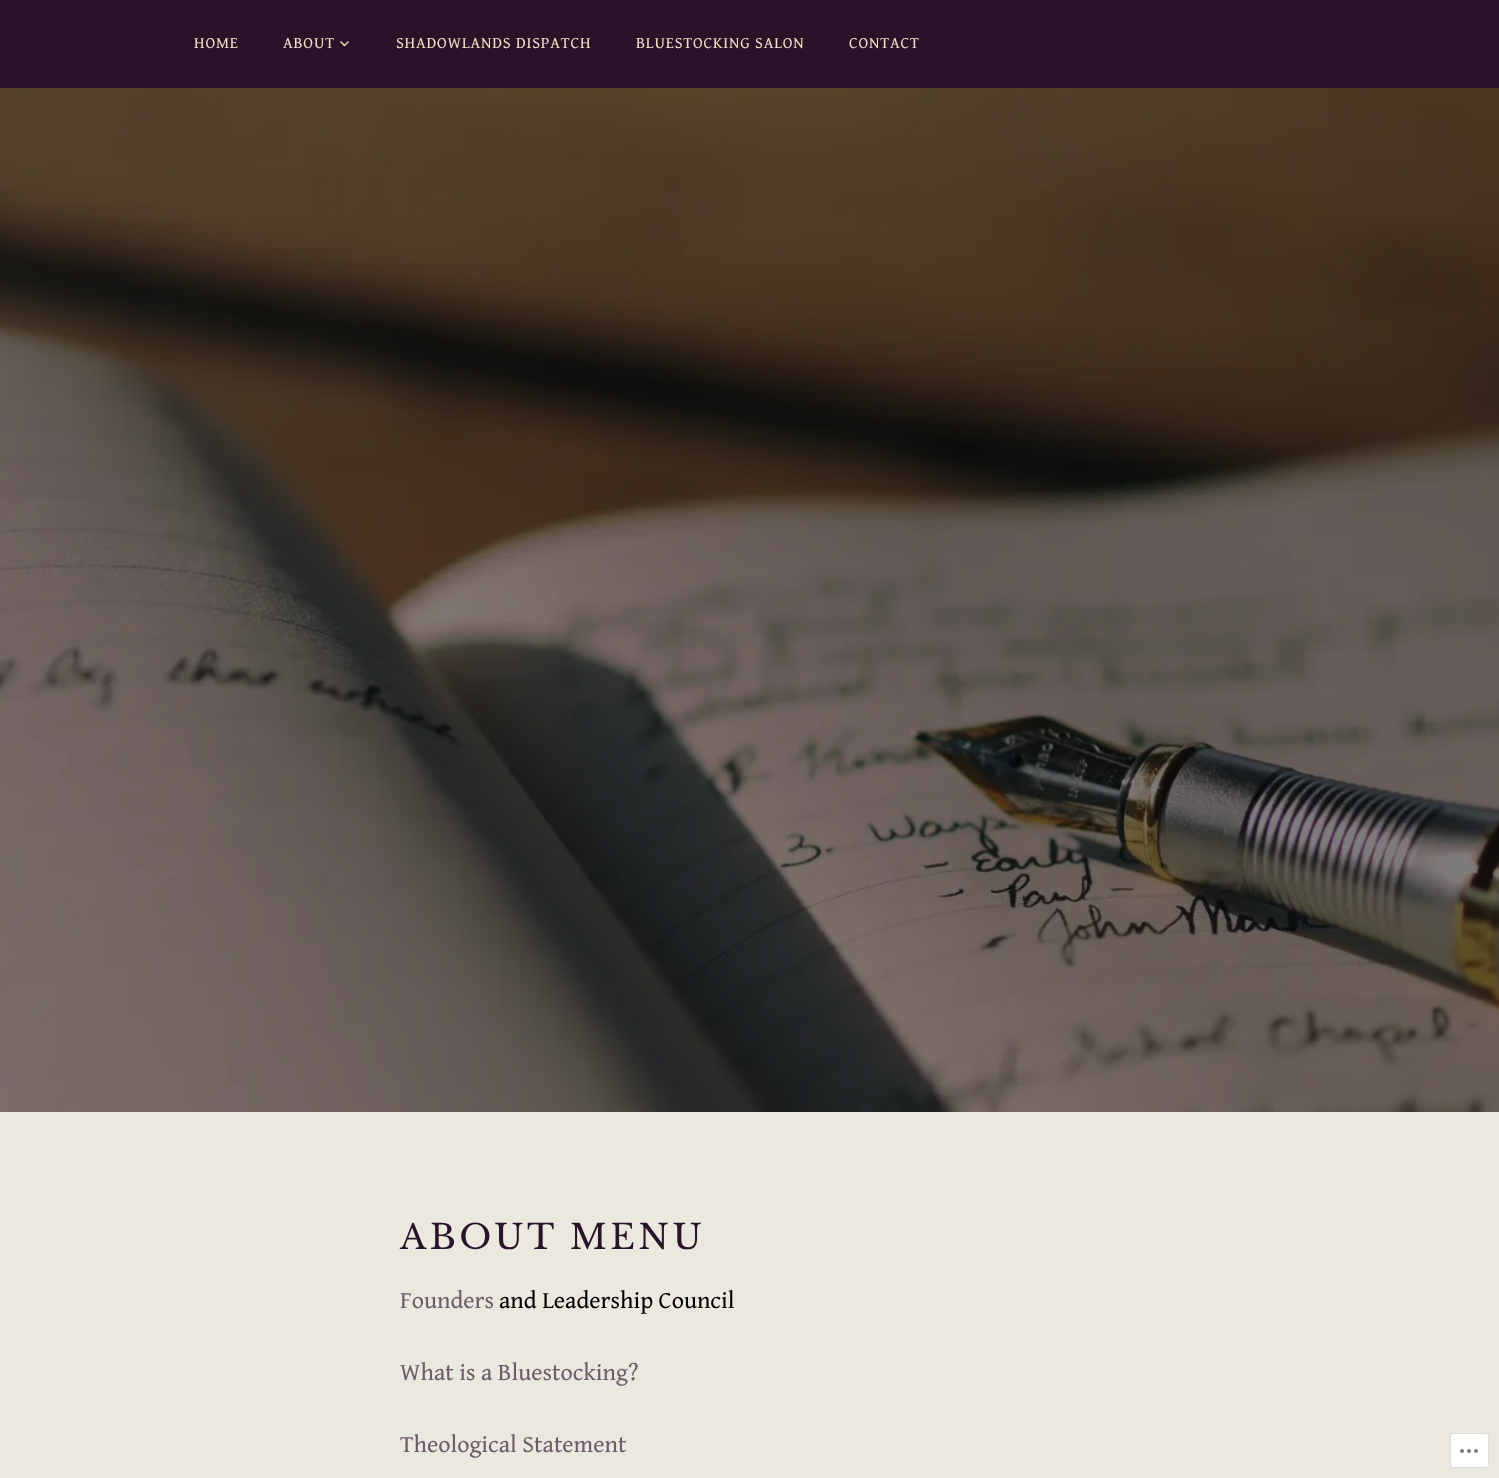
<svg xmlns="http://www.w3.org/2000/svg" width="1499" height="1478">
	<rect width="100%" height="100%" fill="#EBE8DF" />
	<rect x="0" y="0" width="1499" height="88" fill="#291328" />
	<g font-family="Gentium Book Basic" font-size="16" letter-spacing="0.8" fill="#EDDFC6">
		<text x="194" y="48">HOME</text>
		<text x="283" y="48">ABOUT</text>
	</g>
	<image x="340" y="41" width="9" height="6" href="assets/img1.png" />
	<g font-family="Gentium Book Basic" font-size="16" letter-spacing="0.8" fill="#EDDFC6">
		<text x="396" y="48">SHADOWLANDS DISPATCH</text>
		<text x="636" y="48">BLUESTOCKING SALON</text>
		<text x="849" y="48">CONTACT</text>
	</g>
	<image x="0" y="88" width="1499" height="1024" href="assets/img2.png" />
	<text x="400" y="1249" font-family="Libre Baskerville" font-size="34" letter-spacing="3.4" fill="#291328">ABOUT MENU</text>
	<text x="400" y="1308" font-family="Gentium Book Basic" font-size="24" fill="#6F5C69">Founders</text>
	<text x="499" y="1308" font-family="Gentium Book Basic" font-size="24" fill="#000000">and Leadership Council</text>
	<g font-family="Gentium Book Basic" font-size="24" fill="#6F5C69">
		<text x="400" y="1380">What is a Bluestocking?</text>
		<text x="400" y="1452">Theological Statement</text>
	</g>
	<rect x="1450.5" y="1433.5" width="38" height="34" rx="2.5" fill="#FFFFFE" stroke="#DCDCDE" />
	<image x="1460" y="1449" width="18" height="4" href="assets/img3.png" />
</svg>
